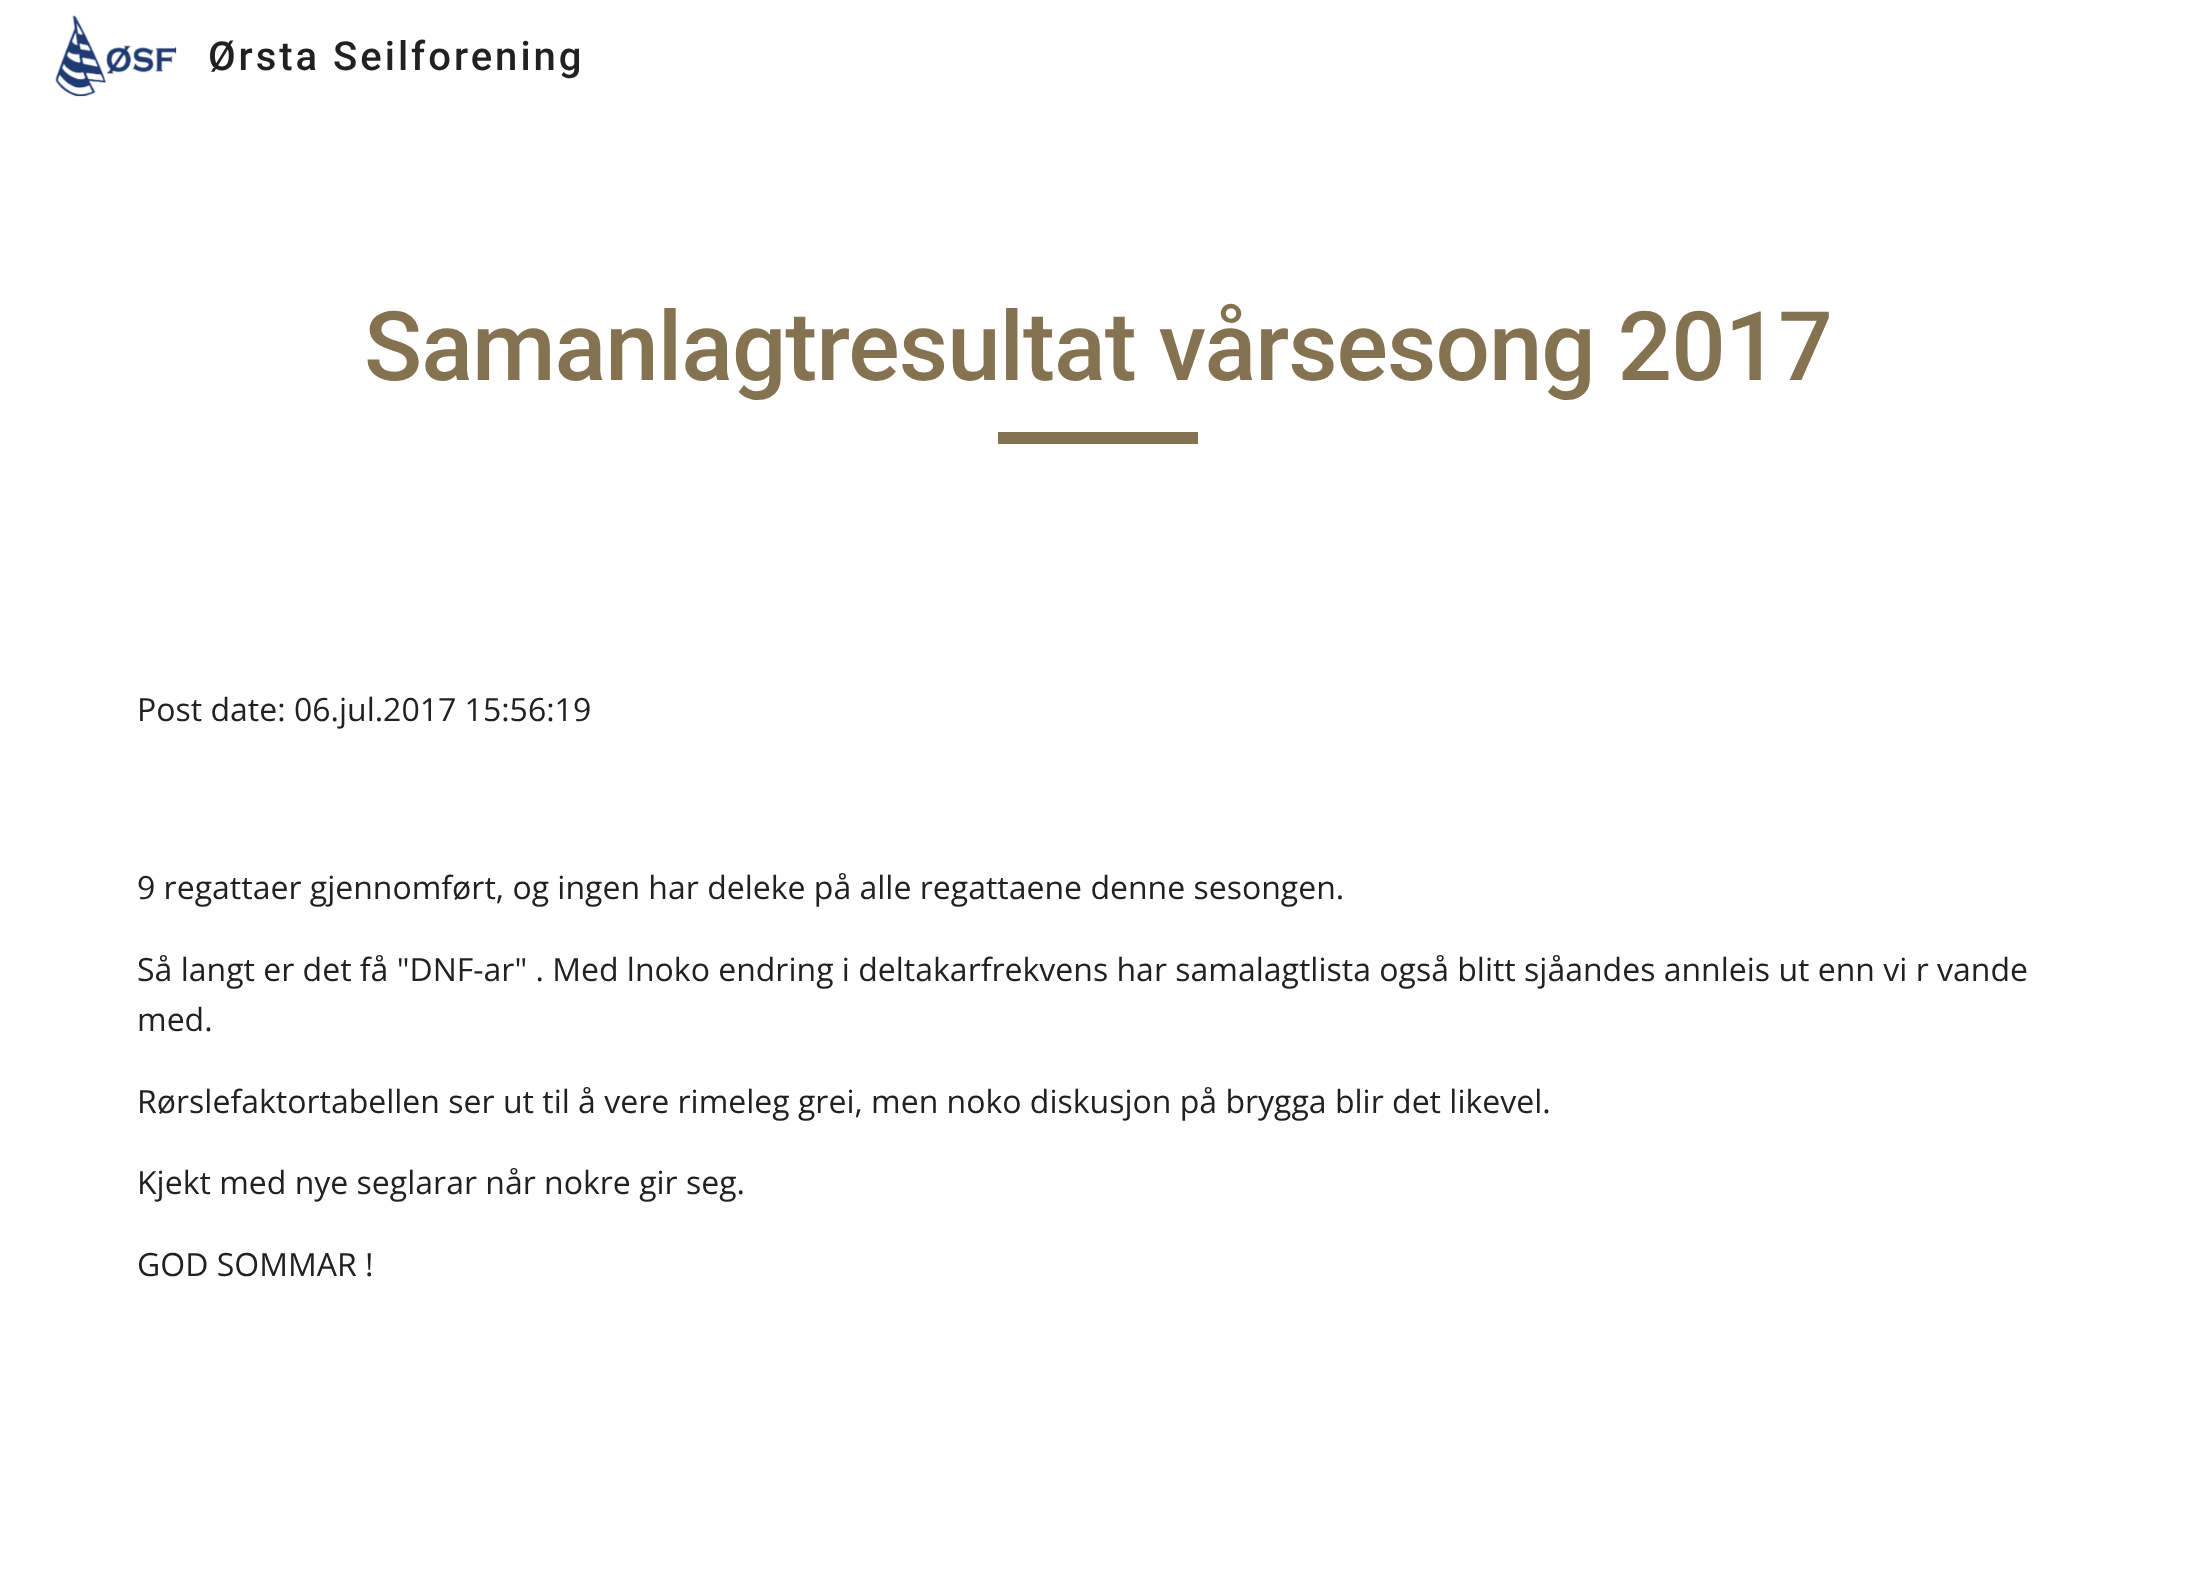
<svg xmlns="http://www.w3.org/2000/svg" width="2196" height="1589">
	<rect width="100%" height="100%" fill="#FFFFFF" />
	<image x="55" y="15" width="122" height="82" href="assets/img1.png" />
	<text x="208" y="70" font-family="Roboto" font-size="40" font-weight="500" letter-spacing="3" fill="#212121">Ørsta Seilforening</text>
	<text x="364" y="380" font-family="Roboto" font-size="96" font-weight="500" letter-spacing="-1" fill="#857251">Samanlagtresultat vårsesong 2017</text>
	<rect x="998" y="432" width="200" height="12" fill="#857251" />
	<g font-family="Open Sans" font-size="32" fill="#212121">
		<text x="137" y="721">Post date: 06.jul.2017 15:56:19</text>
		<text x="137" y="899">9 regattaer gjennomført, og ingen har deleke på alle regattaene denne sesongen.</text>
		<text x="137" y="981">Så langt er det få "DNF-ar" . Med lnoko endring i deltakarfrekvens har samalagtlista også blitt sjåandes annleis ut enn vi r vande</text>
		<text x="137" y="1031">med.</text>
		<text x="137" y="1113">Rørslefaktortabellen ser ut til å vere rimeleg grei, men noko diskusjon på brygga blir det likevel.</text>
		<text x="137" y="1194">Kjekt med nye seglarar når nokre gir seg.</text>
		<text x="137" y="1276">GOD SOMMAR !</text>
	</g>
</svg>
